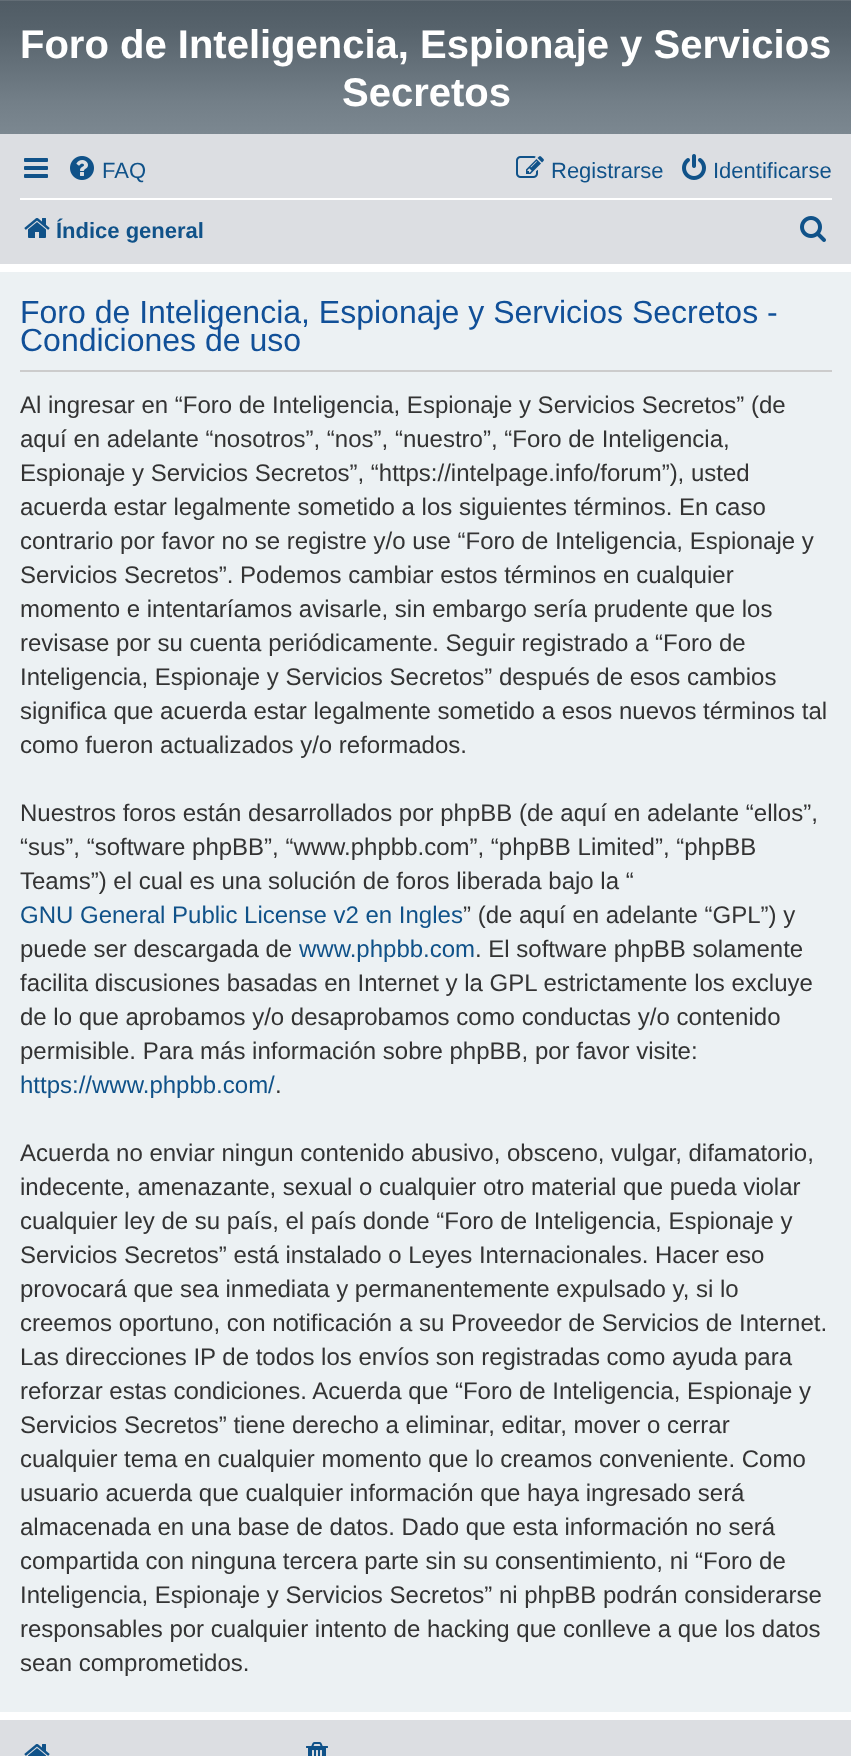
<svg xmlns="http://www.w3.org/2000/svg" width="851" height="1756">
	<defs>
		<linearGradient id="g1" gradientUnits="userSpaceOnUse" x1="426" y1="0" x2="426" y2="136"><stop offset="0" stop-color="#6E777F" /><stop offset="0.01" stop-color="#505C65" /><stop offset="0.2" stop-color="#56626B" /><stop offset="0.75" stop-color="#737F88" /><stop offset="1" stop-color="#7C8891" /></linearGradient>
	</defs>
	<rect width="100%" height="100%" fill="#FFFFFF" />
	<rect x="0" y="0" width="851" height="134" fill="url(#g1)" />
	<g font-family="Liberation Sans" font-size="40" font-weight="700" fill="#FFFFFF">
		<text x="20" y="58">Foro de Inteligencia, Espionaje y Servicios</text>
		<text x="342" y="106">Secretos</text>
	</g>
	<rect x="0" y="134" width="851" height="130" fill="#DCDEE2" />
	<image x="24" y="158" width="24" height="20" href="assets/img1.png" />
	<image x="70" y="156" width="24" height="24" href="assets/img2.png" />
	<text x="102" y="178" font-family="Liberation Sans" font-size="22" fill="#105289">FAQ</text>
	<image x="516" y="156" width="28" height="22" href="assets/img3.png" />
	<text x="551" y="178" font-family="Liberation Sans" font-size="22" fill="#105289">Registrarse</text>
	<image x="682" y="154" width="24" height="26" href="assets/img4.png" />
	<text x="713" y="178" font-family="Liberation Sans" font-size="22" fill="#105289">Identificarse</text>
	<rect x="20" y="198" width="812" height="2" fill="#FFFFFF" />
	<image x="24" y="218" width="26" height="20" href="assets/img5.png" />
	<text x="56" y="238" font-family="Liberation Sans" font-size="22" font-weight="700" fill="#105289">Índice general</text>
	<image x="800" y="216" width="26" height="26" href="assets/img6.png" />
	<rect x="0" y="272" width="851" height="1440" fill="#ECF1F3" />
	<rect x="20" y="370" width="812" height="2" fill="#CCCCCC" />
	<g font-family="Liberation Sans" font-size="32" fill="#115098">
		<text x="20" y="323">Foro de Inteligencia, Espionaje y Servicios Secretos -</text>
		<text x="20" y="351">Condiciones de uso</text>
	</g>
	<g font-family="Liberation Sans" font-size="24" fill="#333333">
		<text x="20" y="413">Al ingresar en “Foro de Inteligencia, Espionaje y Servicios Secretos” (de</text>
		<text x="20" y="447">aquí en adelante “nosotros”, “nos”, “nuestro”, “Foro de Inteligencia,</text>
		<text x="20" y="481">Espionaje y Servicios Secretos”, “https://intelpage.info/forum”), usted</text>
		<text x="20" y="515">acuerda estar legalmente sometido a los siguientes términos. En caso</text>
		<text x="20" y="549">contrario por favor no se registre y/o use “Foro de Inteligencia, Espionaje y</text>
		<text x="20" y="583">Servicios Secretos”. Podemos cambiar estos términos en cualquier</text>
		<text x="20" y="617">momento e intentaríamos avisarle, sin embargo sería prudente que los</text>
		<text x="20" y="651">revisase por su cuenta periódicamente. Seguir registrado a “Foro de</text>
		<text x="20" y="685">Inteligencia, Espionaje y Servicios Secretos” después de esos cambios</text>
		<text x="20" y="719">significa que acuerda estar legalmente sometido a esos nuevos términos tal</text>
		<text x="20" y="753">como fueron actualizados y/o reformados.</text>
		<text x="20" y="821">Nuestros foros están desarrollados por phpBB (de aquí en adelante “ellos”,</text>
		<text x="20" y="855">“sus”, “software phpBB”, “www.phpbb.com”, “phpBB Limited”, “phpBB</text>
		<text x="20" y="889">Teams”) el cual es una solución de foros liberada bajo la “</text>
	</g>
	<text x="20" y="923" font-family="Liberation Sans" font-size="24" fill="#105289">GNU General Public License v2 en Ingles</text>
	<g font-family="Liberation Sans" font-size="24" fill="#333333">
		<text x="463" y="923">” (de aquí en adelante “GPL”) y</text>
		<text x="20" y="957">puede ser descargada de</text>
	</g>
	<text x="299" y="957" font-family="Liberation Sans" font-size="24" fill="#105289">www.phpbb.com</text>
	<g font-family="Liberation Sans" font-size="24" fill="#333333">
		<text x="475" y="957">. El software phpBB solamente</text>
		<text x="20" y="991">facilita discusiones basadas en Internet y la GPL estrictamente los excluye</text>
		<text x="20" y="1025">de lo que aprobamos y/o desaprobamos como conductas y/o contenido</text>
		<text x="20" y="1059">permisible. Para más información sobre phpBB, por favor visite:</text>
	</g>
	<text x="20" y="1093" font-family="Liberation Sans" font-size="24" fill="#105289">https://www.phpbb.com/</text>
	<g font-family="Liberation Sans" font-size="24" fill="#333333">
		<text x="275" y="1093">.</text>
		<text x="20" y="1161">Acuerda no enviar ningun contenido abusivo, obsceno, vulgar, difamatorio,</text>
		<text x="20" y="1195">indecente, amenazante, sexual o cualquier otro material que pueda violar</text>
		<text x="20" y="1229">cualquier ley de su país, el país donde “Foro de Inteligencia, Espionaje y</text>
		<text x="20" y="1263">Servicios Secretos” está instalado o Leyes Internacionales. Hacer eso</text>
		<text x="20" y="1297">provocará que sea inmediata y permanentemente expulsado y, si lo</text>
		<text x="20" y="1331">creemos oportuno, con notificación a su Proveedor de Servicios de Internet.</text>
		<text x="20" y="1365">Las direcciones IP de todos los envíos son registradas como ayuda para</text>
		<text x="20" y="1399">reforzar estas condiciones. Acuerda que “Foro de Inteligencia, Espionaje y</text>
		<text x="20" y="1433">Servicios Secretos” tiene derecho a eliminar, editar, mover o cerrar</text>
		<text x="20" y="1467">cualquier tema en cualquier momento que lo creamos conveniente. Como</text>
		<text x="20" y="1501">usuario acuerda que cualquier información que haya ingresado será</text>
		<text x="20" y="1535">almacenada en una base de datos. Dado que esta información no será</text>
		<text x="20" y="1569">compartida con ninguna tercera parte sin su consentimiento, ni “Foro de</text>
		<text x="20" y="1603">Inteligencia, Espionaje y Servicios Secretos” ni phpBB podrán considerarse</text>
		<text x="20" y="1637">responsables por cualquier intento de hacking que conlleve a que los datos</text>
		<text x="20" y="1671">sean comprometidos.</text>
	</g>
	<rect x="0" y="1720" width="851" height="36" fill="#DCDEE2" />
	<image x="24" y="1744" width="26" height="12" href="assets/img7.png" />
	<image x="306" y="1742" width="22" height="14" href="assets/img8.png" />
</svg>
